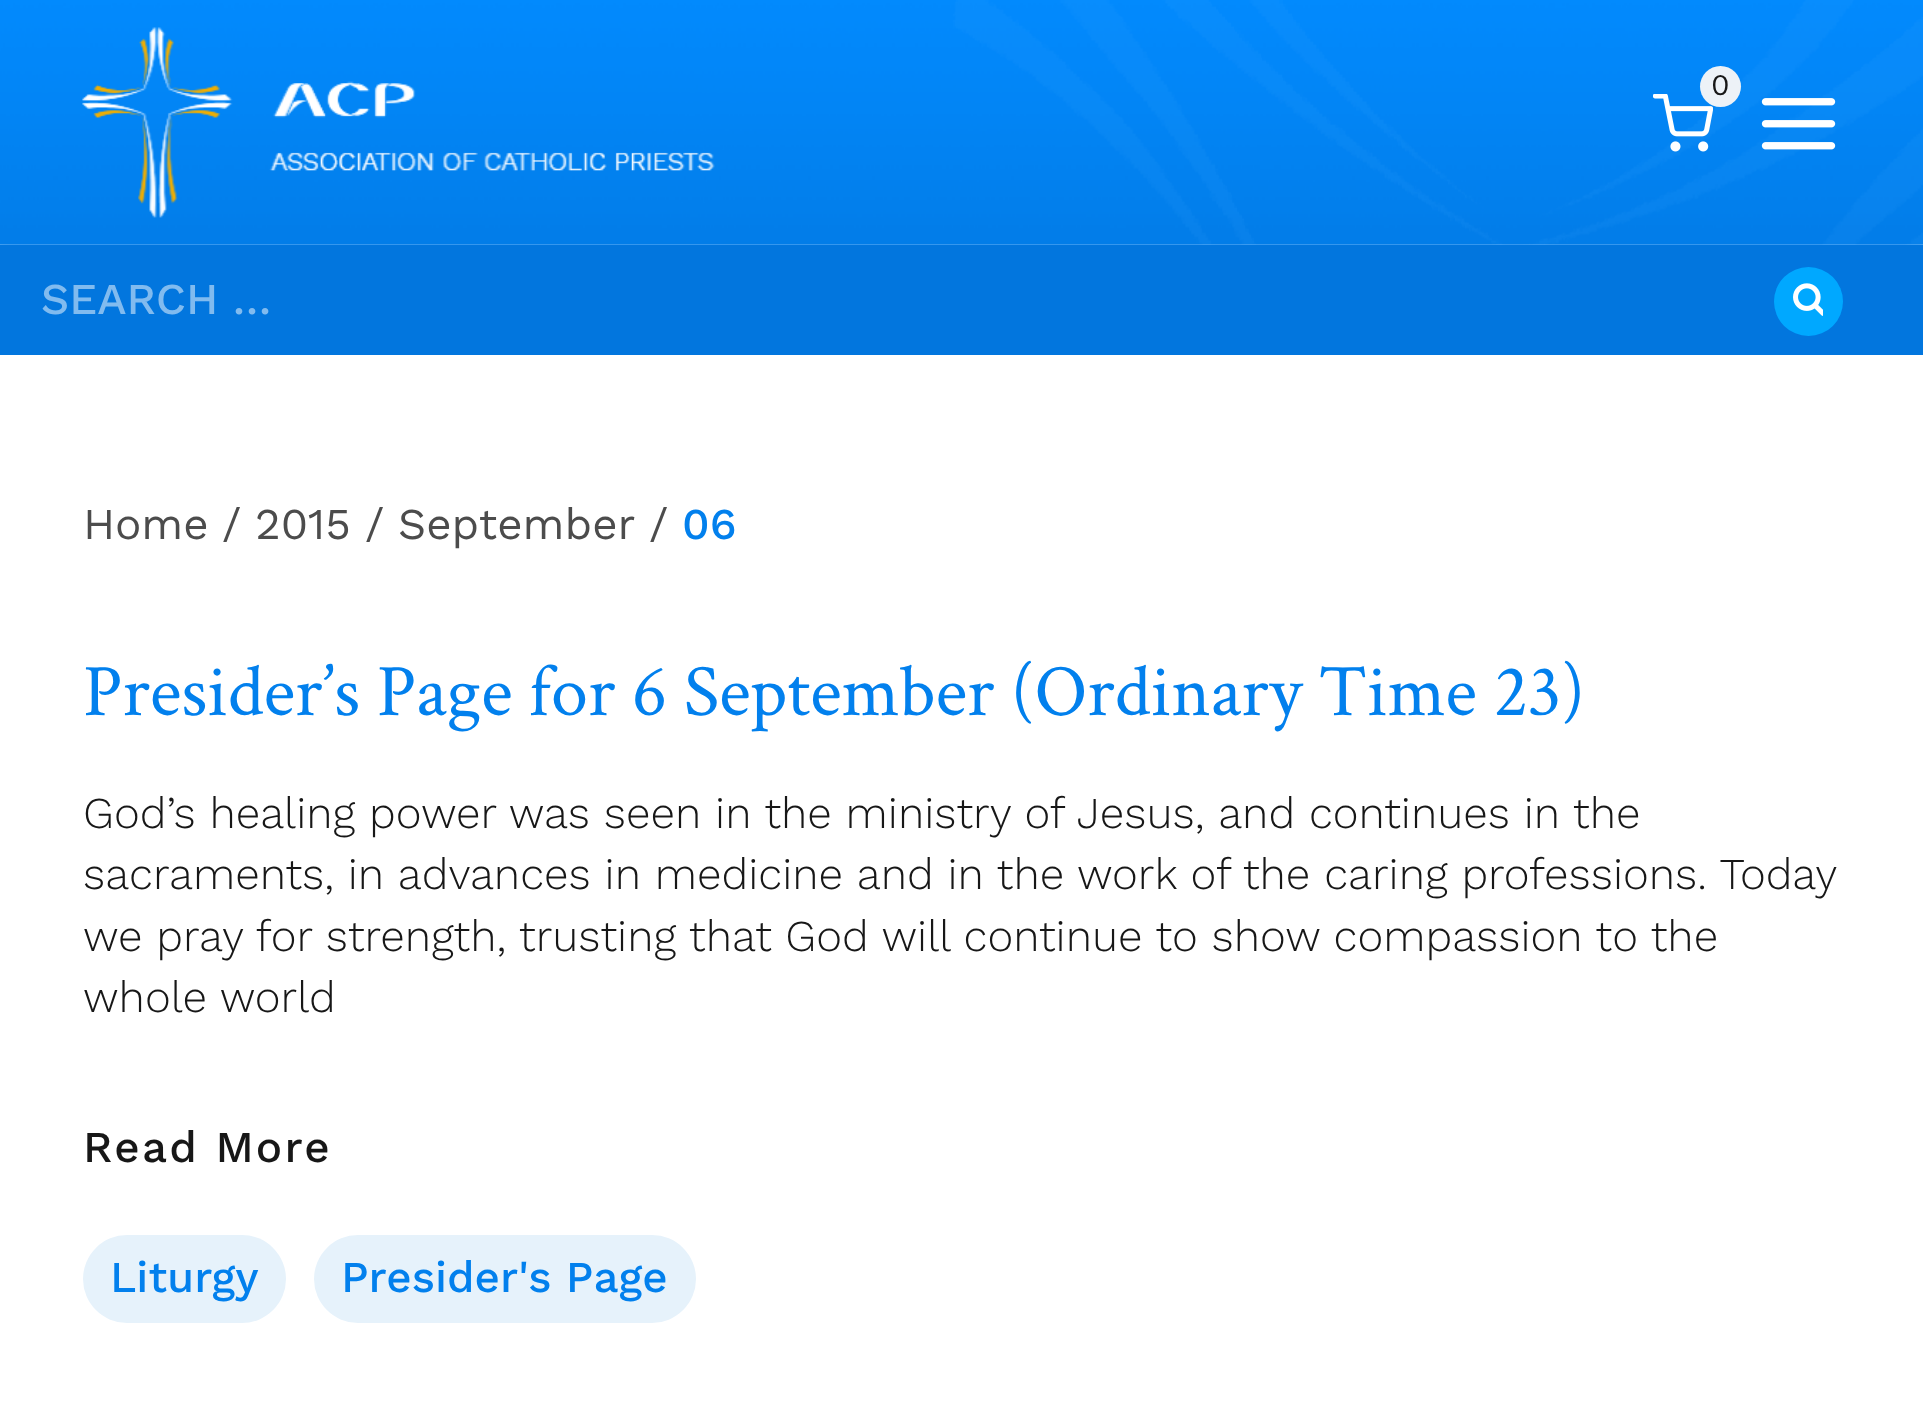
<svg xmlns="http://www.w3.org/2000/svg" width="1923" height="1413">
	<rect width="100%" height="100%" fill="#FFFFFF" />
	<rect x="0" y="28" width="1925" height="244" fill="#8AC1FF" fill-opacity="0.57" filter="blur(9.5px)" />
	<rect x="0" y="245" width="1923" height="110" fill="#0276DE" />
	<image x="0" y="0" width="1923" height="245" href="assets/img1.png" />
	<image x="82" y="27" width="633" height="191" href="assets/img2.png" />
	<image x="1653" y="94" width="60" height="58" href="assets/img3.png" />
	<circle cx="1720.5" cy="86.5" r="20.5" fill="#EDF2F7" />
	<text x="1711" y="95" font-family="Work Sans" font-size="30" fill="#171717">0</text>
	<image x="1761" y="98" width="75" height="52" href="assets/img4.png" />
	<text x="41" y="314" font-family="Work Sans" font-size="44" font-weight="500" fill="#81BBEF">SEARCH …</text>
	<circle cx="1808.5" cy="301.5" r="34.5" fill="#00A8FF" />
	<image x="1793" y="283" width="30" height="33" href="assets/img5.png" />
	<g font-family="Work Sans" font-size="44" fill="#4C4C4C">
		<text x="83" y="539">Home</text>
		<text x="222" y="539">/</text>
		<text x="255" y="539">2015</text>
		<text x="365" y="539">/</text>
		<text x="398" y="539">September</text>
		<text x="649" y="539">/</text>
	</g>
	<text x="682" y="539" font-family="Work Sans" font-size="44" font-weight="500" fill="#0280ED">06</text>
	<text x="83" y="715" font-family="Crimson Text" font-size="74.25" fill="#0280ED">Presider’s Page for 6 September (Ordinary Time 23)</text>
	<g font-family="Work Sans" font-size="44" font-weight="300" fill="#171717">
		<text x="83" y="828">God’s healing power was seen in the ministry of Jesus, and continues in the</text>
		<text x="83" y="889">sacraments, in advances in medicine and in the work of the caring professions. Today</text>
		<text x="83" y="951">we pray for strength, trusting that God will continue to show compassion to the</text>
		<text x="83" y="1012">whole world</text>
	</g>
	<text x="83" y="1162" font-family="Work Sans" font-size="44" font-weight="500" letter-spacing="2.25" fill="#171717">Read More</text>
	<rect x="83" y="1235" width="203" height="88" rx="44" fill="#E6F2FB" />
	<text x="110" y="1292" font-family="Work Sans" font-size="44" font-weight="500" fill="#0280ED">Liturgy</text>
	<rect x="314" y="1235" width="382" height="88" rx="44" fill="#E6F2FB" />
	<text x="341" y="1292" font-family="Work Sans" font-size="44" font-weight="500" fill="#0280ED">Presider's Page</text>
</svg>
